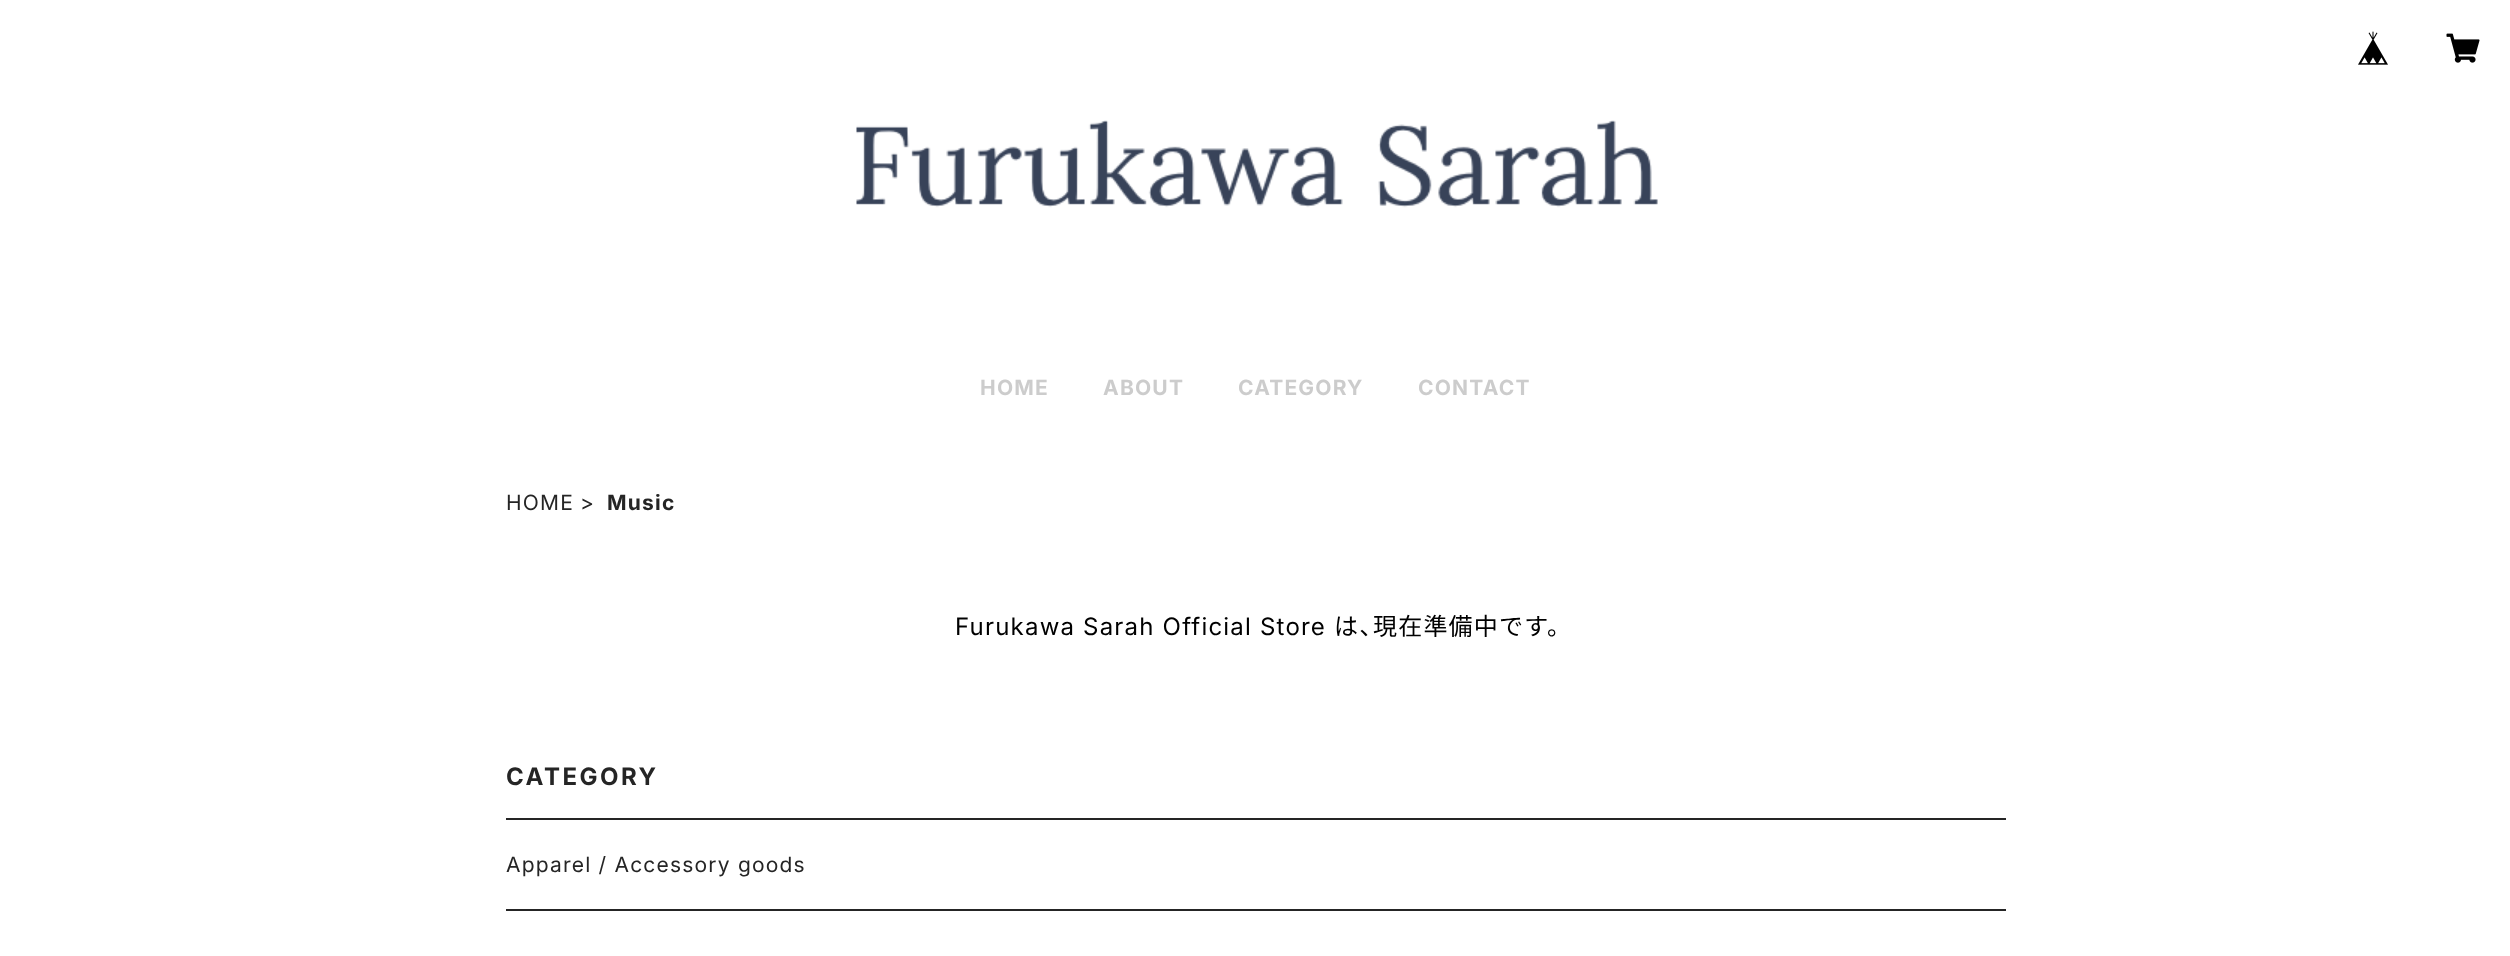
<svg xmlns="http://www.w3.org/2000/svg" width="2510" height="956">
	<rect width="100%" height="100%" fill="#FFFFFF" />
	<image x="2358" y="31" width="30" height="34" href="assets/img1.png" />
	<image x="2446" y="33" width="34" height="30" href="assets/img2.png" />
	<image x="856" y="120" width="802" height="88" href="assets/img3.png" />
	<g font-family="Inter" font-size="21" font-weight="700" letter-spacing="1.2" fill="#CCCCCC">
		<text x="980" y="395">HOME</text>
		<text x="1103" y="395">ABOUT</text>
		<text x="1238" y="395">CATEGORY</text>
		<text x="1418" y="395">CONTACT</text>
	</g>
	<g font-family="Inter" font-size="21" letter-spacing="1.2" fill="#252525">
		<text x="506" y="510">HOME</text>
		<text x="580" y="510">&gt;</text>
	</g>
	<text x="607" y="510" font-family="Inter" font-size="21" font-weight="700" letter-spacing="1.2" fill="#252525">Music</text>
	<text x="955" y="635" font-family="Inter" font-size="24" letter-spacing="1.2" fill="#000000">Furukawa Sarah Official Store</text>
	<text x="1334" y="635" font-family="Noto Sans JP" font-size="24" letter-spacing="1.2" fill="#000000">は、</text>
	<text x="1373" y="635" font-family="Noto Sans JP" font-size="24" letter-spacing="1.2" fill="#000000">現在準備中です。</text>
	<text x="506" y="785" font-family="Inter" font-size="24" font-weight="700" letter-spacing="2.5" fill="#252525">CATEGORY</text>
	<rect x="506" y="818" width="1500" height="2" fill="#252525" />
	<text x="506" y="872" font-family="Inter" font-size="21" letter-spacing="1.2" fill="#252525">Apparel / Accessory goods</text>
	<rect x="506" y="909" width="1500" height="2" fill="#252525" />
</svg>
